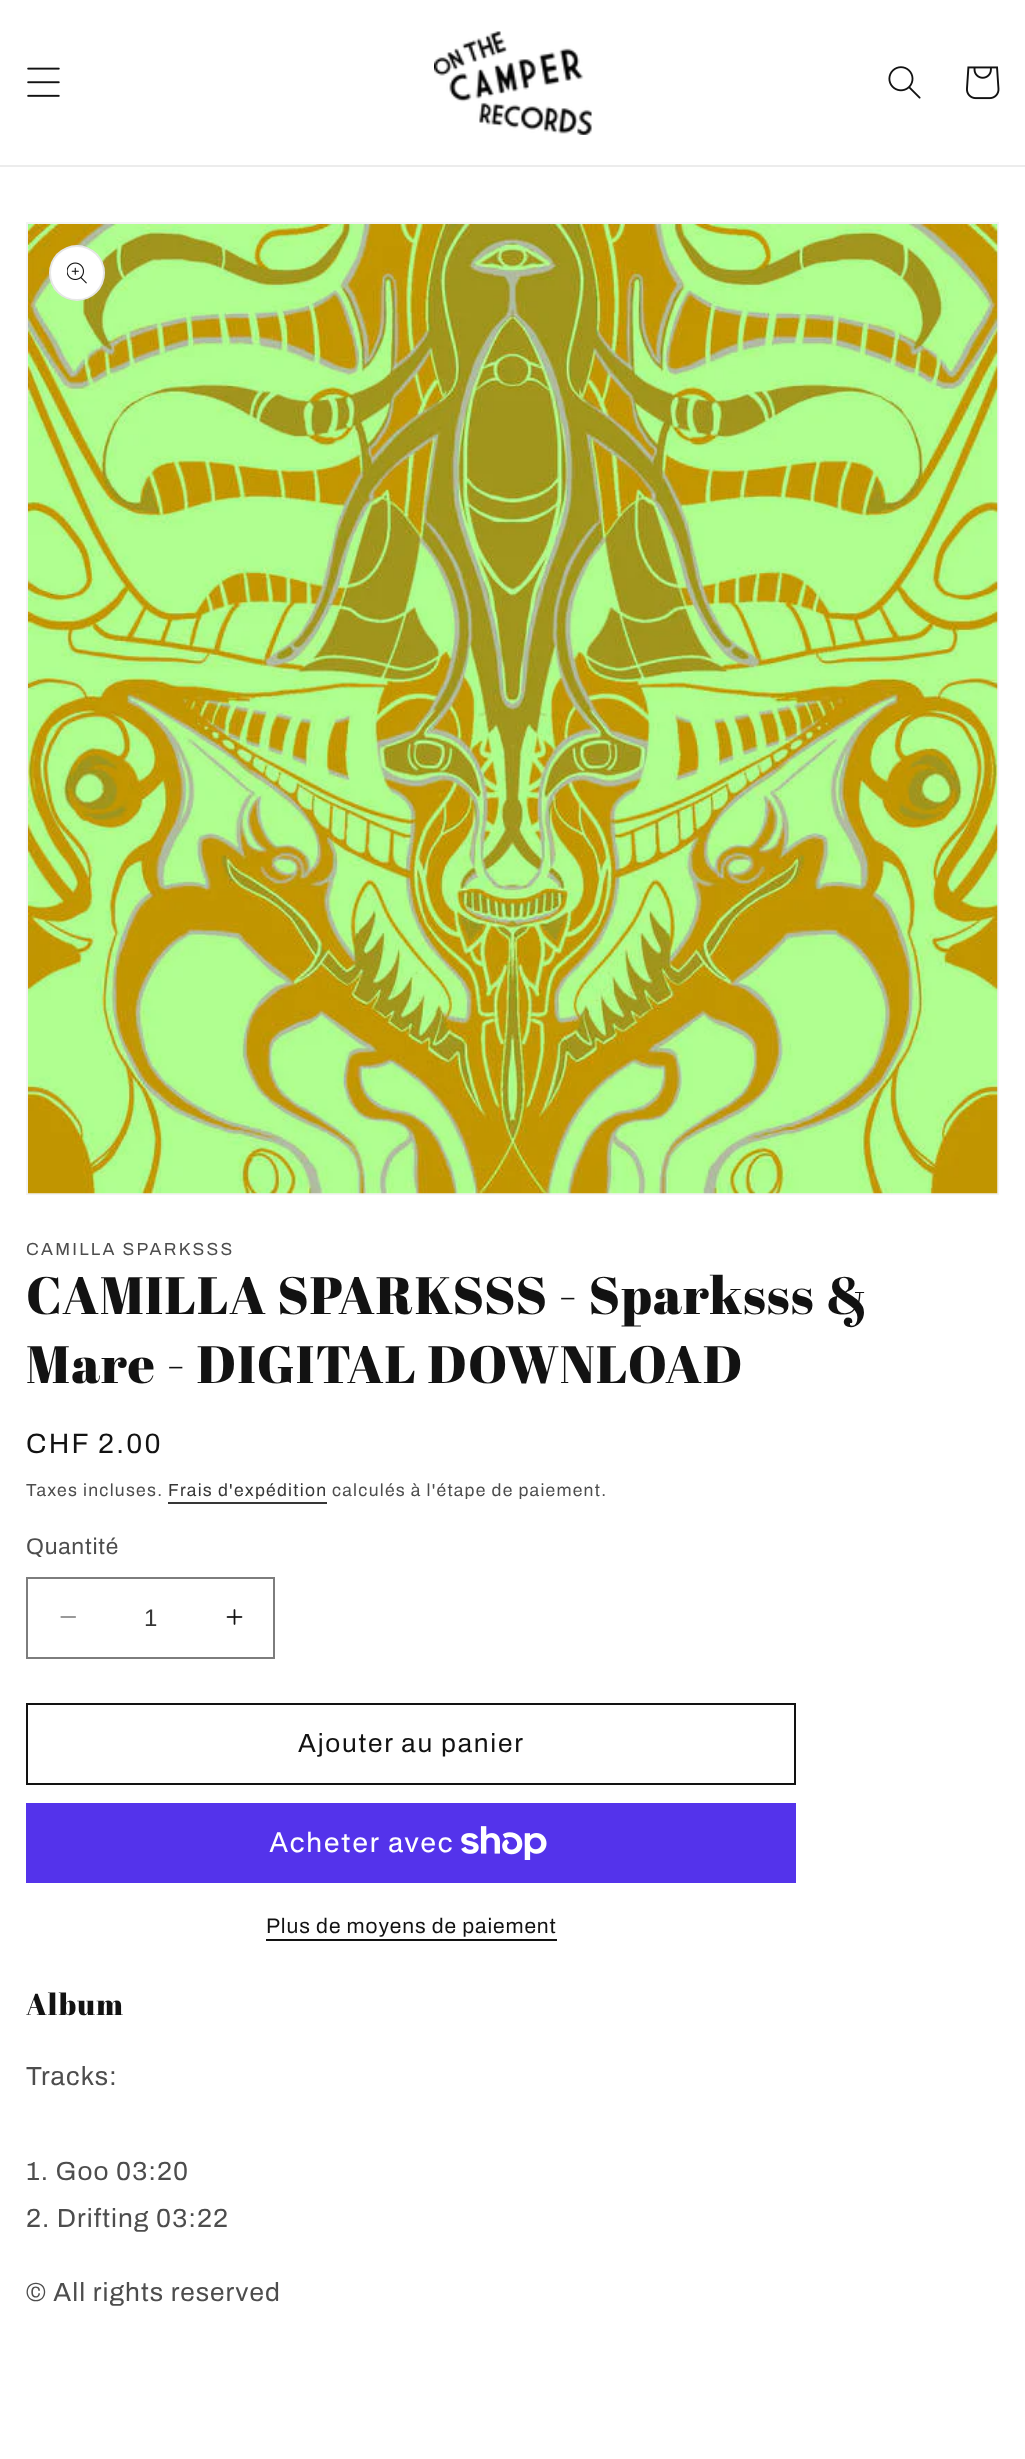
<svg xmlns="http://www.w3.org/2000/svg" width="1025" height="2459">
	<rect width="100%" height="100%" fill="#FFFFFF" />
	<rect x="0" y="165" width="1025" height="2" fill="#ECECEC" />
	<image x="27" y="67" width="33" height="30" href="assets/img1.png" />
	<image x="434" y="31" width="158" height="104" href="assets/img2.png" />
	<image x="888" y="66" width="33" height="33" href="assets/img3.png" />
	<image x="966" y="66" width="34" height="34" href="assets/img4.png" />
	<rect x="27" y="223" width="971" height="971" fill="none" stroke="#F3F3F3" stroke-width="2" />
	<image x="28" y="224" width="970" height="970" href="assets/img5.png" />
	<circle cx="77" cy="273" r="28" fill="#FFFFFF" />
	<circle cx="77" cy="273" r="27" fill="none" stroke="#121212" stroke-opacity="0.1" stroke-width="2" />
	<image x="67" y="262" width="20" height="22" href="assets/img6.png" />
	<text x="26" y="1255" font-family="Archivo" font-size="17.5" letter-spacing="2.25" fill="#4D4D4D">CAMILLA SPARKSSS</text>
	<g font-family="Abril Fatface" font-size="52.5" letter-spacing="1.05" fill="#121212">
		<text x="26" y="1314">CAMILLA SPARKSSS - Sparksss &amp;</text>
		<text x="26" y="1383">Mare - DIGITAL DOWNLOAD</text>
	</g>
	<text x="26" y="1453" font-family="Archivo" font-size="28" letter-spacing="2.25" fill="#121212">CHF 2.00</text>
	<text x="26" y="1496" font-family="Archivo" font-size="17.5" letter-spacing="1.25" fill="#4D4D4D">Taxes incluses.</text>
	<text x="168" y="1496" font-family="Archivo" font-size="17.5" letter-spacing="1.25" fill="#363636">Frais d'expédition</text>
	<rect x="168" y="1502" width="159" height="2" fill="#363636" />
	<text x="332" y="1496" font-family="Archivo" font-size="17.5" letter-spacing="1.25" fill="#4D4D4D">calculés à l'étape de paiement.</text>
	<text x="26" y="1554" font-family="Archivo" font-size="22.75" letter-spacing="0.75" fill="#4D4D4D">Quantité</text>
	<image x="60" y="1616" width="16" height="2" href="assets/img7.png" />
	<image x="226" y="1609" width="17" height="16" href="assets/img8.png" />
	<rect x="27" y="1578" width="247" height="80" fill="none" stroke="#7D7D7D" stroke-width="2" />
	<text x="144" y="1626" font-family="Liberation Sans" font-size="24" fill="#363636">1</text>
	<rect x="27" y="1704" width="768" height="80" fill="none" stroke="#121212" stroke-width="2" />
	<text x="298" y="1752" font-family="Archivo" font-size="26.25" letter-spacing="1.75" fill="#121212">Ajouter au panier</text>
	<rect x="26" y="1803" width="770" height="80" fill="#5433EB" />
	<text x="269" y="1852" font-family="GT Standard" font-size="28" letter-spacing="1.05" fill="#FFFFFF">Acheter avec</text>
	<image x="461" y="1826" width="86" height="34" href="assets/img9.png" />
	<text x="266" y="1933" font-family="Archivo" font-size="21" letter-spacing="0.9" fill="#121212">Plus de moyens de paiement</text>
	<rect x="266" y="1939" width="291" height="2" fill="#121212" />
	<text x="26" y="2015" font-family="Abril Fatface" font-size="30" letter-spacing="1.05" fill="#121212">Album</text>
	<g font-family="Archivo" font-size="26.25" letter-spacing="1.05" fill="#4D4D4D">
		<text x="26" y="2085">Tracks:</text>
		<text x="26" y="2180">1. Goo 03:20</text>
		<text x="26" y="2227">2. Drifting 03:22</text>
		<text x="26" y="2301">© All rights reserved</text>
	</g>
</svg>
